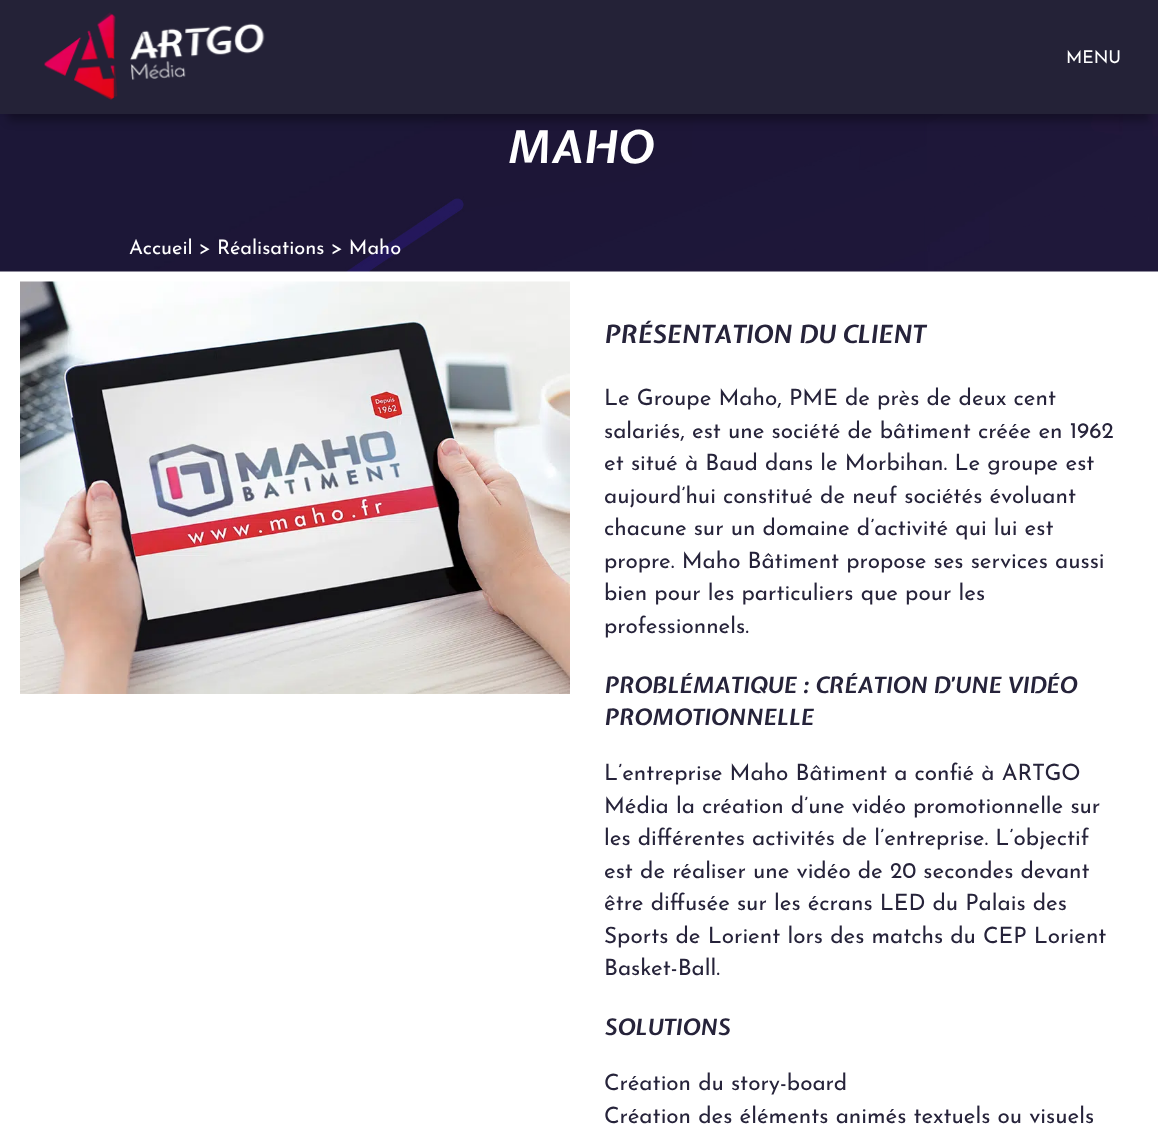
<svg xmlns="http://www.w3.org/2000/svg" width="1158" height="1126">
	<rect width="100%" height="100%" fill="#FFFFFF" />
	<image x="0" y="114" width="1158" height="158" href="assets/img2.png" />
	<rect x="8" y="23" width="1143" height="98" fill="#000000" fill-opacity="0.3" filter="blur(4px)" />
	<rect x="0" y="0" width="1158" height="114" fill="#242237" />
	<image x="44" y="12" width="221" height="88" href="assets/img1.png" />
	<text x="1066" y="63" font-family="Josefin Sans" font-size="17.5" fill="#FFFFFF">MENU</text>
	<text x="506" y="163" font-family="Expletus Sans" font-size="45" font-weight="700" font-style="italic" fill="#FFFFFF">MAHO</text>
	<text x="129" y="254" font-family="Josefin Sans" font-size="20" fill="#FFFFFF">Accueil &gt; Réalisations &gt; Maho</text>
	<image x="20" y="281" width="550" height="413" href="assets/img3.png" />
	<text x="604" y="343" font-family="Expletus Sans" font-size="25" font-weight="700" font-style="italic" fill="#26233A">PRÉSENTATION DU CLIENT</text>
	<g font-family="Josefin Sans" font-size="22.5" fill="#26233A">
		<text x="604" y="405">Le Groupe Maho, PME de près de deux cent</text>
		<text x="604" y="438">salariés, est une société de bâtiment créée en 1962</text>
		<text x="604" y="470">et situé à Baud dans le Morbihan. Le groupe est</text>
		<text x="604" y="503">aujourd’hui constitué de neuf sociétés évoluant</text>
		<text x="604" y="535">chacune sur un domaine d’activité qui lui est</text>
		<text x="604" y="568">propre. Maho Bâtiment propose ses services aussi</text>
		<text x="604" y="600">bien pour les particuliers que pour les</text>
		<text x="604" y="633">professionnels.</text>
	</g>
	<g font-family="Expletus Sans" font-size="22.5" font-weight="700" font-style="italic" fill="#26233A">
		<text x="604" y="693">PROBLÉMATIQUE : CRÉATION D’UNE VIDÉO</text>
		<text x="604" y="725">PROMOTIONNELLE</text>
	</g>
	<g font-family="Josefin Sans" font-size="22.5" fill="#26233A">
		<text x="604" y="780">L’entreprise Maho Bâtiment a confié à ARTGO</text>
		<text x="604" y="813">Média la création d’une vidéo promotionnelle sur</text>
		<text x="604" y="845">les différentes activités de l’entreprise. L’objectif</text>
		<text x="604" y="878">est de réaliser une vidéo de 20 secondes devant</text>
		<text x="604" y="910">être diffusée sur les écrans LED du Palais des</text>
		<text x="604" y="943">Sports de Lorient lors des matchs du CEP Lorient</text>
		<text x="604" y="975">Basket-Ball.</text>
	</g>
	<text x="604" y="1035" font-family="Expletus Sans" font-size="22.5" font-weight="700" font-style="italic" fill="#26233A">SOLUTIONS</text>
	<g font-family="Josefin Sans" font-size="22.5" fill="#26233A">
		<text x="604" y="1090">Création du story-board</text>
		<text x="604" y="1123">Création des éléments animés textuels ou visuels</text>
	</g>
</svg>
